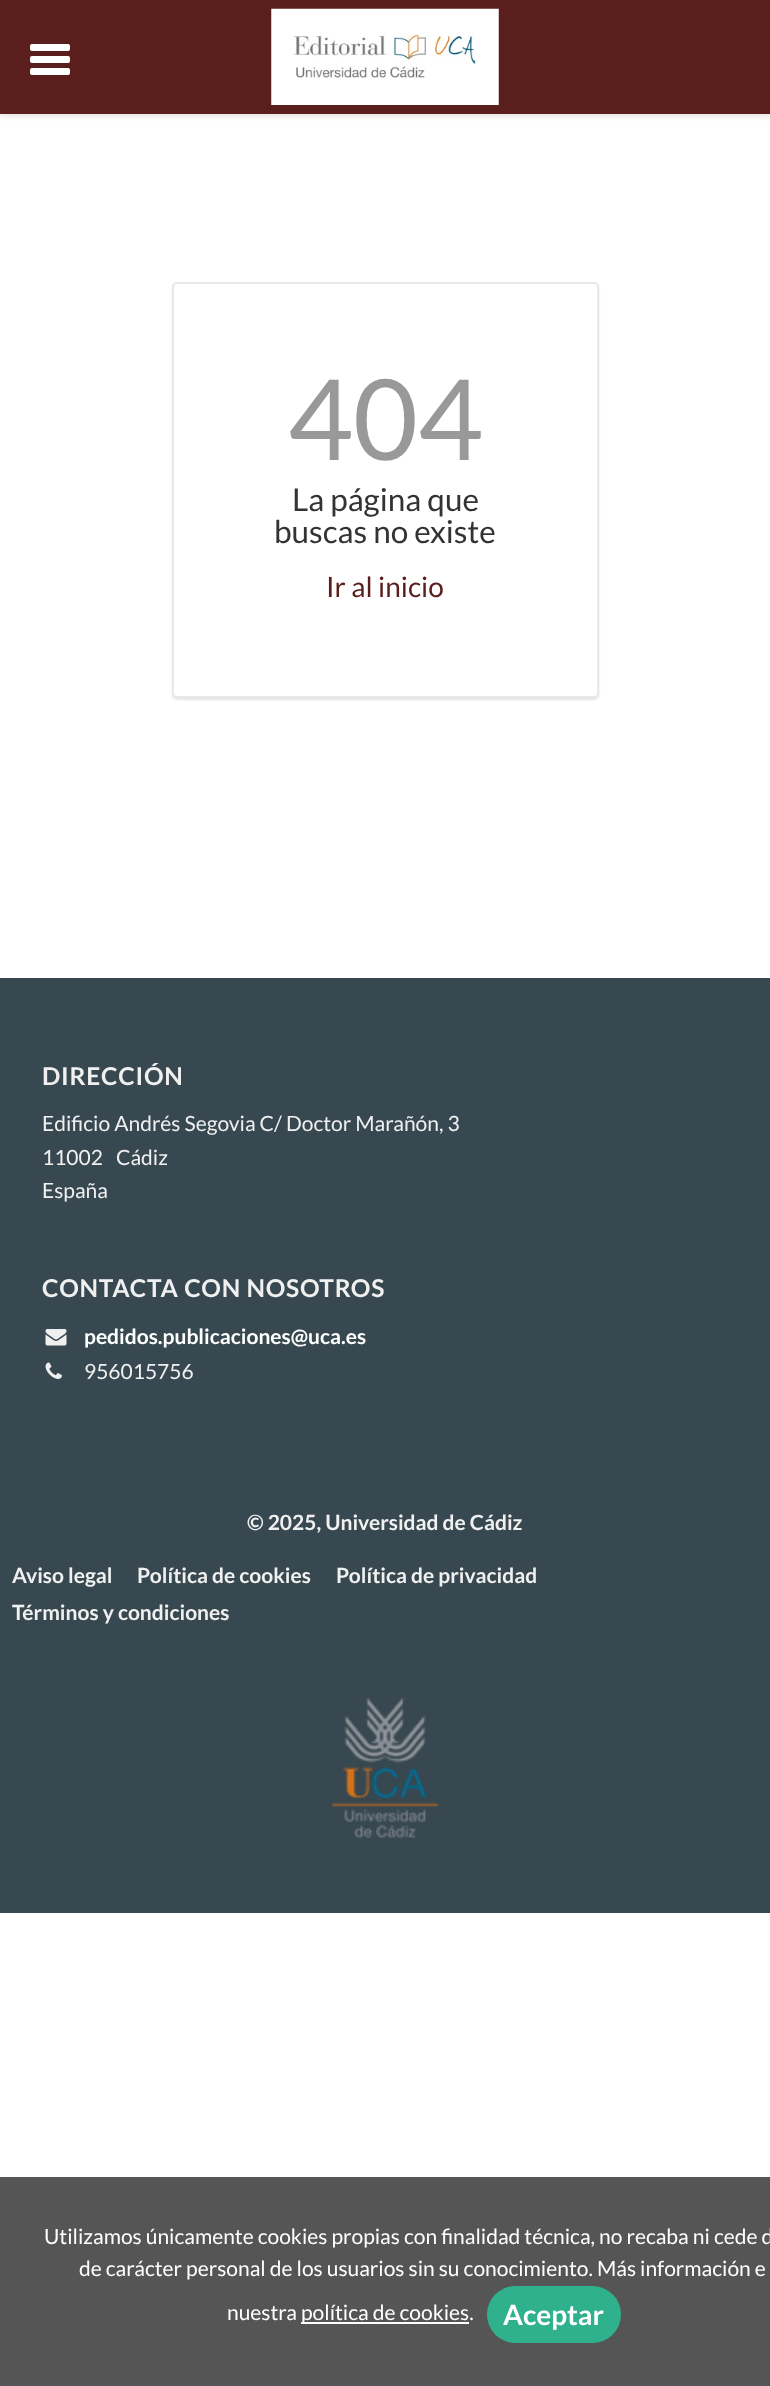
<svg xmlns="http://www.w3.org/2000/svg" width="770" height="2386">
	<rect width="100%" height="100%" fill="#FFFFFF" />
	<rect x="0" y="2" width="770" height="115" fill="#000000" fill-opacity="0.1" filter="blur(2.5px)" />
	<rect x="0" y="114" width="770" height="2" fill="#EEEEEE" />
	<rect x="0" y="0" width="770" height="114" fill="#5A1F1D" />
	<rect x="30" y="44" width="40" height="7" rx="2" fill="#FFFFFF" />
	<rect x="30" y="56" width="40" height="7" rx="2" fill="#FFFFFF" />
	<rect x="30" y="68" width="40" height="7" rx="2" fill="#FFFFFF" />
	<image x="271" y="8" width="228" height="97" href="assets/img1.png" />
	<rect x="172" y="284" width="427" height="416" rx="5" fill="#000000" fill-opacity="0.1" filter="blur(1px)" />
	<rect x="173" y="283" width="425" height="414" rx="4" fill="#FFFFFF" stroke="#E8E8E8" stroke-width="2" />
	<text x="288" y="460" font-family="Lato" font-size="112" fill="#999999">404</text>
	<g font-family="Lato" font-size="31.5" fill="#333333">
		<text x="292" y="511">La página que</text>
		<text x="274" y="543">buscas no existe</text>
	</g>
	<text x="326" y="597" font-family="Lato" font-size="28" fill="#5A1F1D">Ir al inicio</text>
	<rect x="0" y="978" width="770" height="935" fill="#384850" />
	<text x="42" y="1085" font-family="Lato" font-size="24.5" font-weight="700" letter-spacing="0.75" fill="#F0F0F0">DIRECCIÓN</text>
	<g font-family="Lato" font-size="21" fill="#F0F0F0">
		<text x="42" y="1131">Edificio Andrés Segovia C/ Doctor Marañón, 3</text>
		<text x="42" y="1165">11002</text>
		<text x="116" y="1165">Cádiz</text>
		<text x="42" y="1198">España</text>
	</g>
	<text x="42" y="1297" font-family="Lato" font-size="24.5" font-weight="700" letter-spacing="0.75" fill="#F0F0F0">CONTACTA CON NOSOTROS</text>
	<image x="45" y="1329" width="22" height="17" href="assets/img2.png" />
	<text x="84" y="1344" font-family="Lato" font-size="21" font-weight="700" fill="#FFFFFF">pedidos.publicaciones@uca.es</text>
	<image x="45" y="1362" width="17" height="17" href="assets/img3.png" />
	<text x="84" y="1379" font-family="Lato" font-size="21" fill="#F0F0F0">956015756</text>
	<g font-family="Lato" font-size="21" font-weight="700" fill="#F0F0F0">
		<text x="247" y="1530">© 2025, Universidad de Cádiz</text>
		<text x="12" y="1583">Aviso legal</text>
		<text x="137" y="1583">Política de cookies</text>
		<text x="336" y="1583">Política de privacidad</text>
		<text x="12" y="1620">Términos y condiciones</text>
	</g>
	<image x="331" y="1697" width="108" height="141" href="assets/img4.png" />
	<rect x="0" y="2177" width="770" height="209" fill="#555555" />
	<g font-family="Lato" font-size="21" fill="#FFFFFF">
		<text x="44" y="2244">Utilizamos únicamente cookies propias con finalidad técnica, no recaba ni cede d</text>
		<text x="79" y="2276">de carácter personal de los usuarios sin su conocimiento. Más información e</text>
		<text x="227" y="2320">nuestra</text>
	</g>
	<rect x="301" y="2322" width="168" height="2" fill="#FFFFFF" />
	<text x="301" y="2320" font-family="Lato" font-size="21" fill="#FFFFFF">política de cookies.</text>
	<rect x="487" y="2286" width="134" height="57" rx="28.5" fill="#2FB18D" />
	<text x="503" y="2325" font-family="Lato" font-size="28" font-weight="700" fill="#FFFFFF">Aceptar</text>
</svg>
